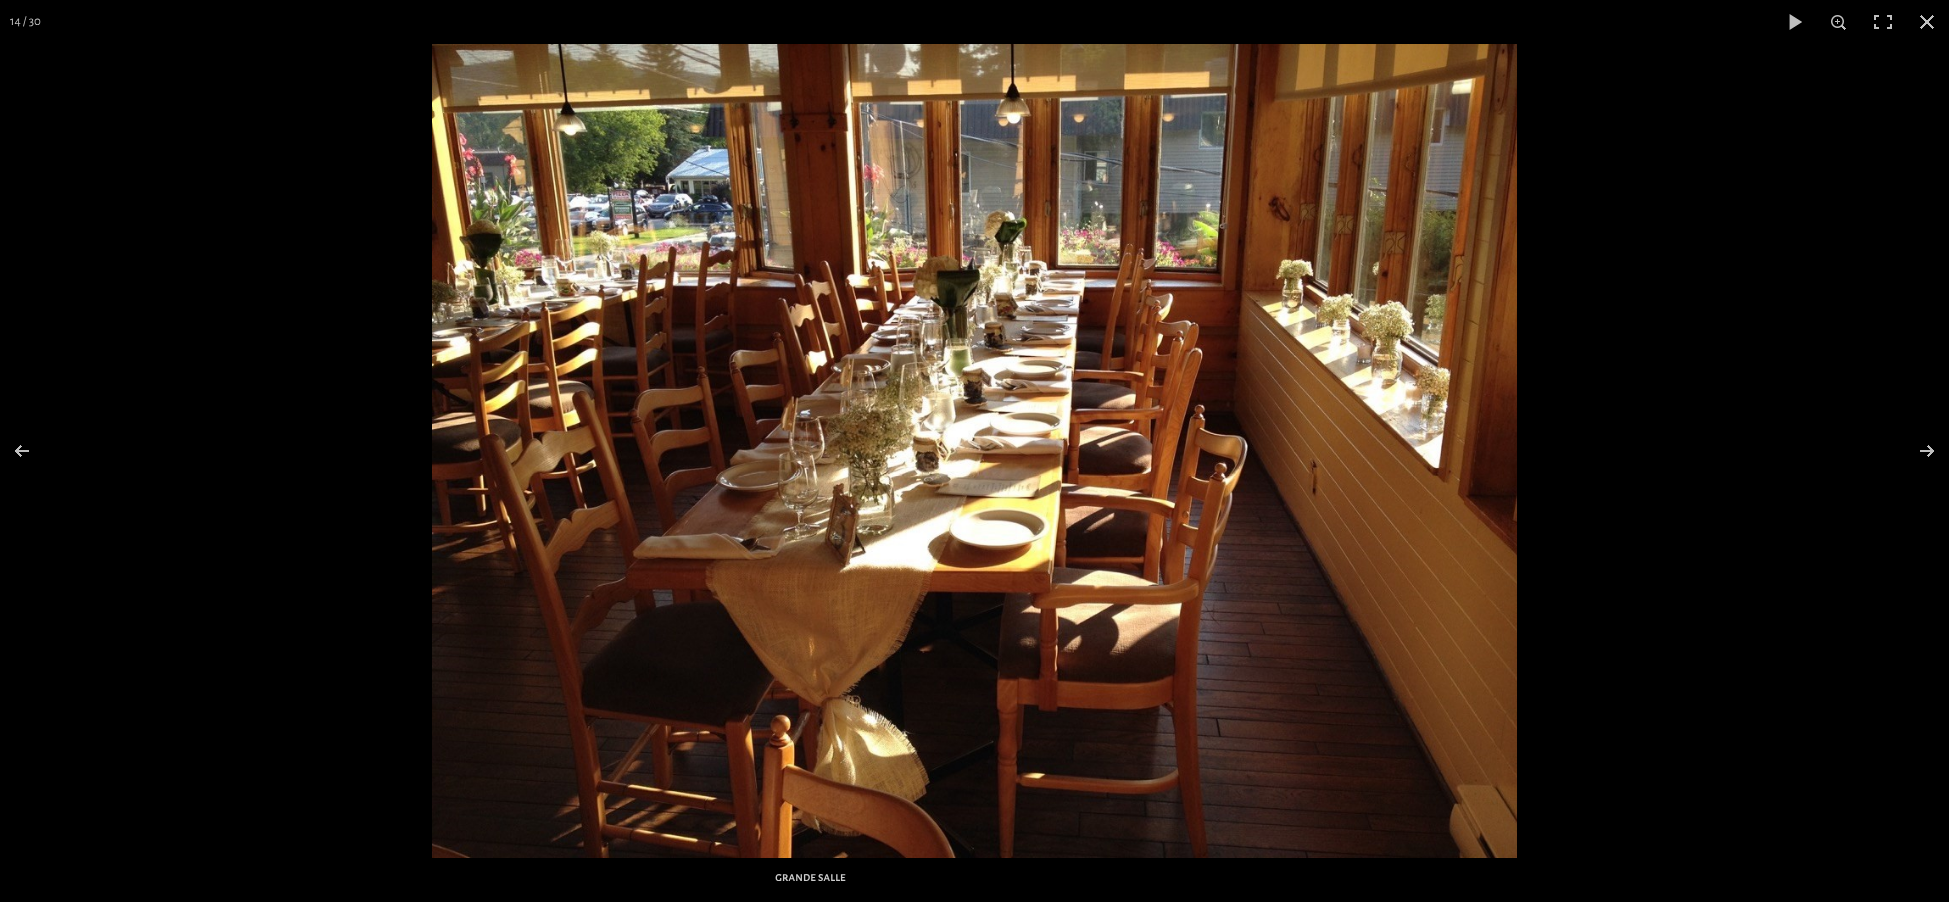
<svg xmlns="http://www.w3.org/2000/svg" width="1949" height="902">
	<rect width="100%" height="100%" fill="#000000" />
	<text x="10" y="25" font-family="Alegreya Sans SC" font-size="13" fill="#BFBFBF">14 / 30</text>
	<image x="1789" y="14" width="13" height="16" href="assets/img1.png" />
	<image x="1831" y="15" width="15" height="15" href="assets/img2.png" />
	<image x="1874" y="15" width="18" height="14" href="assets/img3.png" />
	<image x="1920" y="15" width="14" height="14" href="assets/img4.png" />
	<image x="15" y="445" width="14" height="12" href="assets/img5.png" />
	<image x="1920" y="445" width="14" height="12" href="assets/img6.png" />
	<text x="775" y="881" font-family="Alegreya Sans SC" font-size="13" font-weight="700" fill="#CCCCCC">grande salle</text>
	<image x="432" y="44" width="1085" height="814" href="assets/img7.png" />
</svg>
